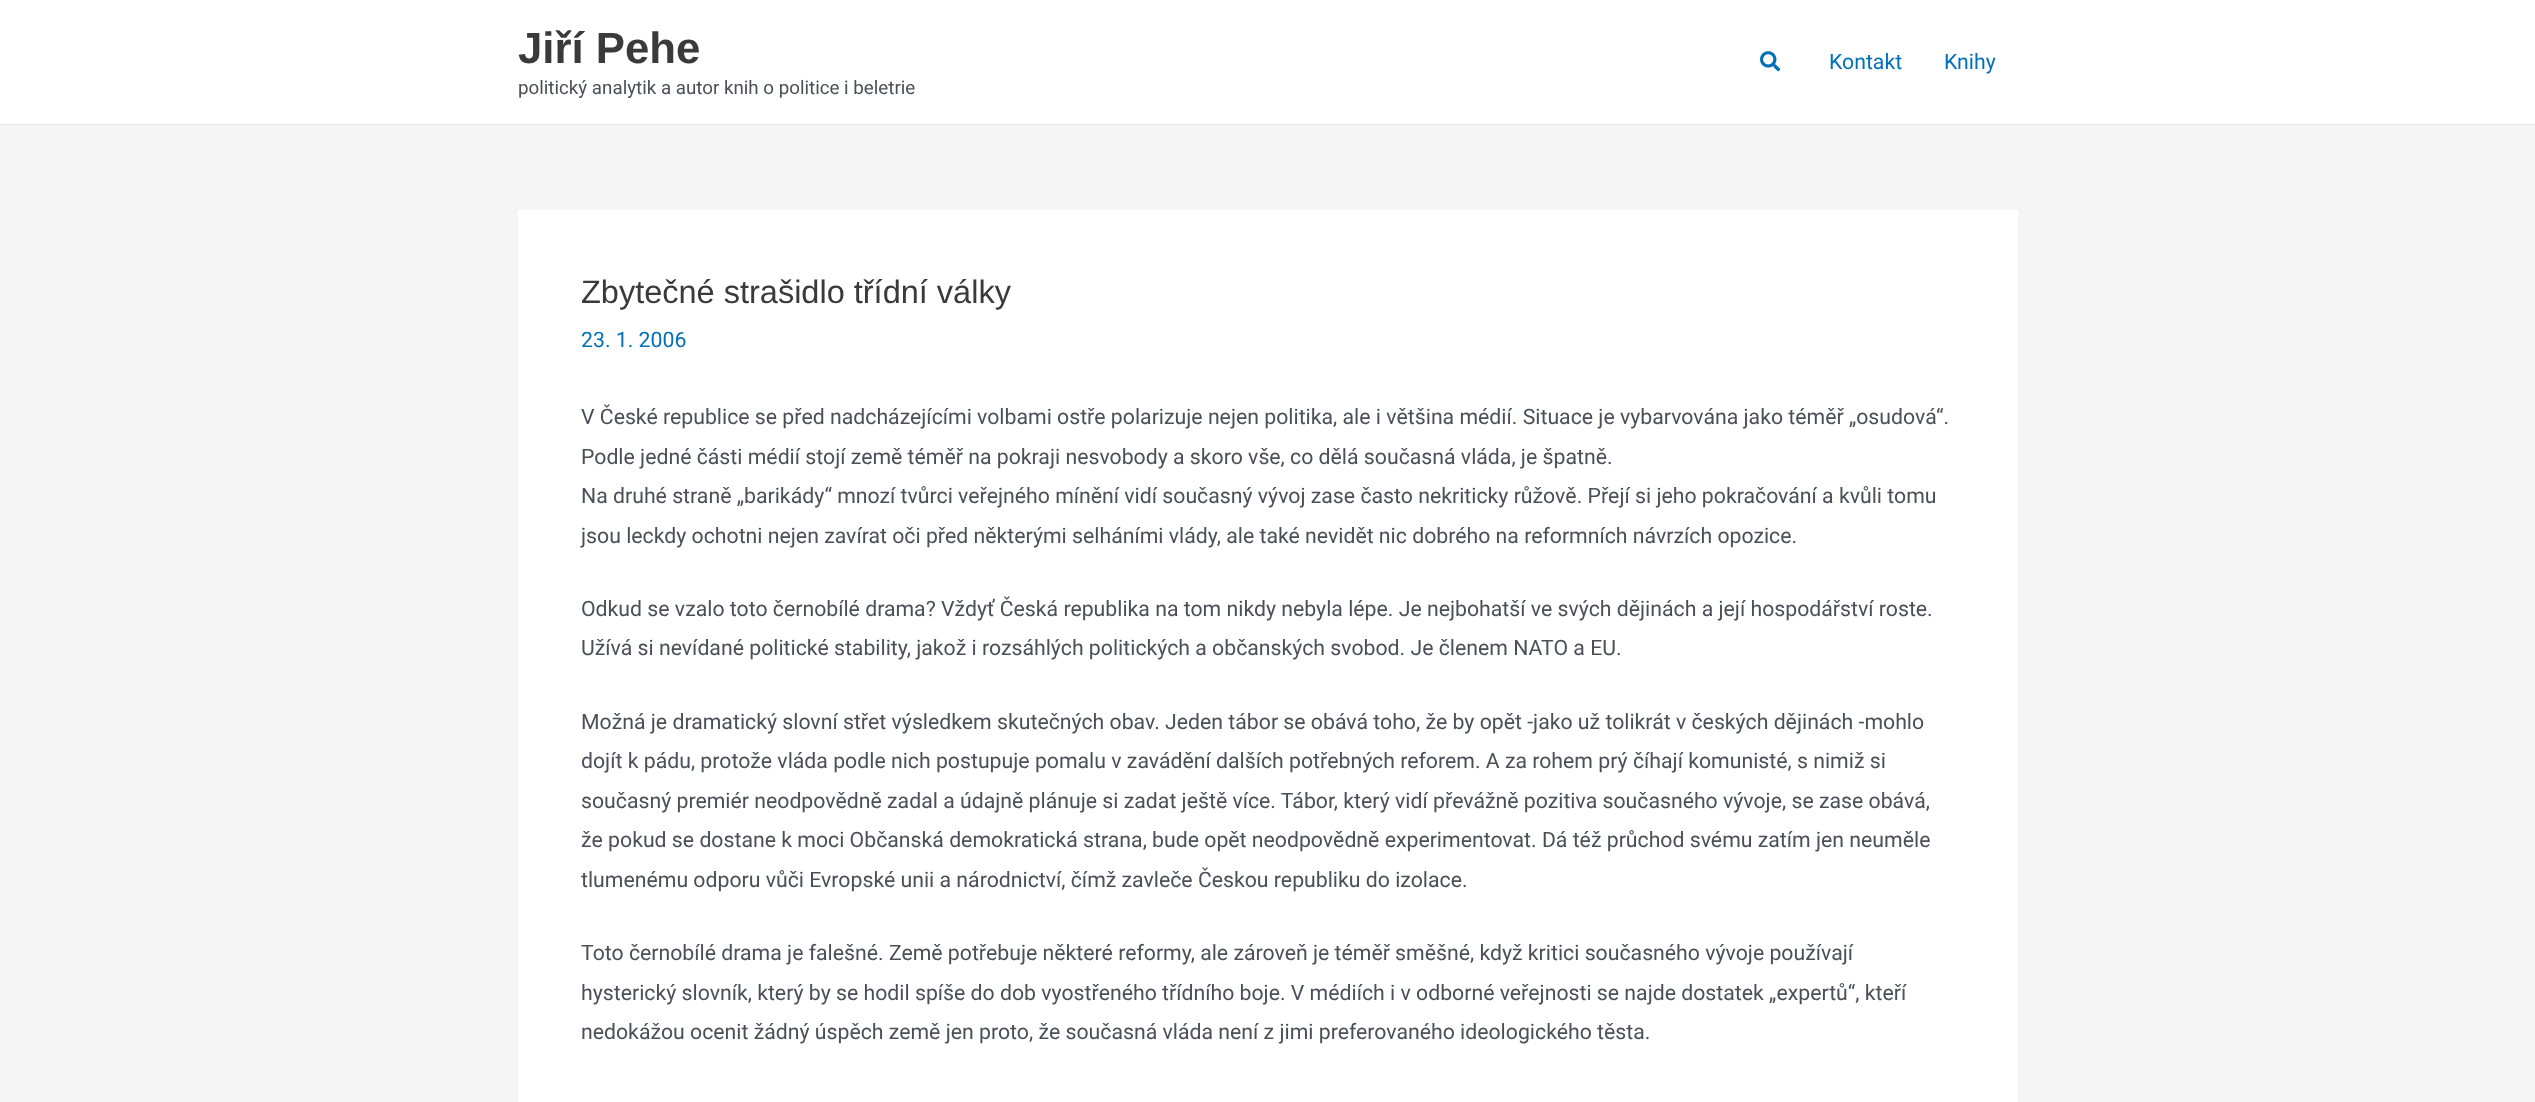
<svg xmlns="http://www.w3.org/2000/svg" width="2535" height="1102">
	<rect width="100%" height="100%" fill="#F5F5F5" />
	<rect x="0" y="0" width="2535" height="124" fill="#FFFFFF" />
	<rect x="0" y="124" width="2535" height="1" fill="#E5E5E5" />
	<text x="518" y="63" font-family="Liberation Sans" font-size="43.75" font-weight="700" fill="#3A3A3A">Jiří Pehe</text>
	<text x="518" y="94" font-family="Roboto" font-size="18.75" fill="#4B4F58">politický analytik a autor knih o politice i beletrie</text>
	<image x="1760" y="51" width="20" height="21" href="assets/img1.png" />
	<g font-family="Roboto" font-size="21.25" fill="#0170B9">
		<text x="1829" y="69">Kontakt</text>
		<text x="1944" y="69">Knihy</text>
	</g>
	<rect x="518" y="210" width="1500" height="892" fill="#FFFFFF" />
	<text x="581" y="303" font-family="Liberation Sans" font-size="32.5" fill="#3A3A3A">Zbytečné strašidlo třídní války</text>
	<text x="581" y="347" font-family="Roboto" font-size="21.25" fill="#0170B9">23. 1. 2006</text>
	<g font-family="Roboto" font-size="21.25" fill="#4B4F58">
		<text x="581" y="424">V České republice se před nadcházejícími volbami ostře polarizuje nejen politika, ale i většina médií. Situace je vybarvována jako téměř „osudová“.</text>
		<text x="581" y="464">Podle jedné části médií stojí země téměř na pokraji nesvobody a skoro vše, co dělá současná vláda, je špatně.</text>
		<text x="581" y="503">Na druhé straně „barikády“ mnozí tvůrci veřejného mínění vidí současný vývoj zase často nekriticky růžově. Přejí si jeho pokračování a kvůli tomu</text>
		<text x="581" y="543">jsou leckdy ochotni nejen zavírat oči před některými selháními vlády, ale také nevidět nic dobrého na reformních návrzích opozice.</text>
		<text x="581" y="616">Odkud se vzalo toto černobílé drama? Vždyť Česká republika na tom nikdy nebyla lépe. Je nejbohatší ve svých dějinách a její hospodářství roste.</text>
		<text x="581" y="655">Užívá si nevídané politické stability, jakož i rozsáhlých politických a občanských svobod. Je členem NATO a EU.</text>
		<text x="581" y="729">Možná je dramatický slovní střet výsledkem skutečných obav. Jeden tábor se obává toho, že by opět -jako už tolikrát v českých dějinách -mohlo</text>
		<text x="581" y="768">dojít k pádu, protože vláda podle nich postupuje pomalu v zavádění dalších potřebných reforem. A za rohem prý číhají komunisté, s nimiž si</text>
		<text x="581" y="808">současný premiér neodpovědně zadal a údajně plánuje si zadat ještě více. Tábor, který vidí převážně pozitiva současného vývoje, se zase obává,</text>
		<text x="581" y="847">že pokud se dostane k moci Občanská demokratická strana, bude opět neodpovědně experimentovat. Dá též průchod svému zatím jen neuměle</text>
		<text x="581" y="887">tlumenému odporu vůči Evropské unii a národnictví, čímž zavleče Českou republiku do izolace.</text>
		<text x="581" y="960">Toto černobílé drama je falešné. Země potřebuje některé reformy, ale zároveň je téměř směšné, když kritici současného vývoje používají</text>
		<text x="581" y="1000">hysterický slovník, který by se hodil spíše do dob vyostřeného třídního boje. V médiích i v odborné veřejnosti se najde dostatek „expertů“, kteří</text>
		<text x="581" y="1039">nedokážou ocenit žádný úspěch země jen proto, že současná vláda není z jimi preferovaného ideologického těsta.</text>
	</g>
</svg>
